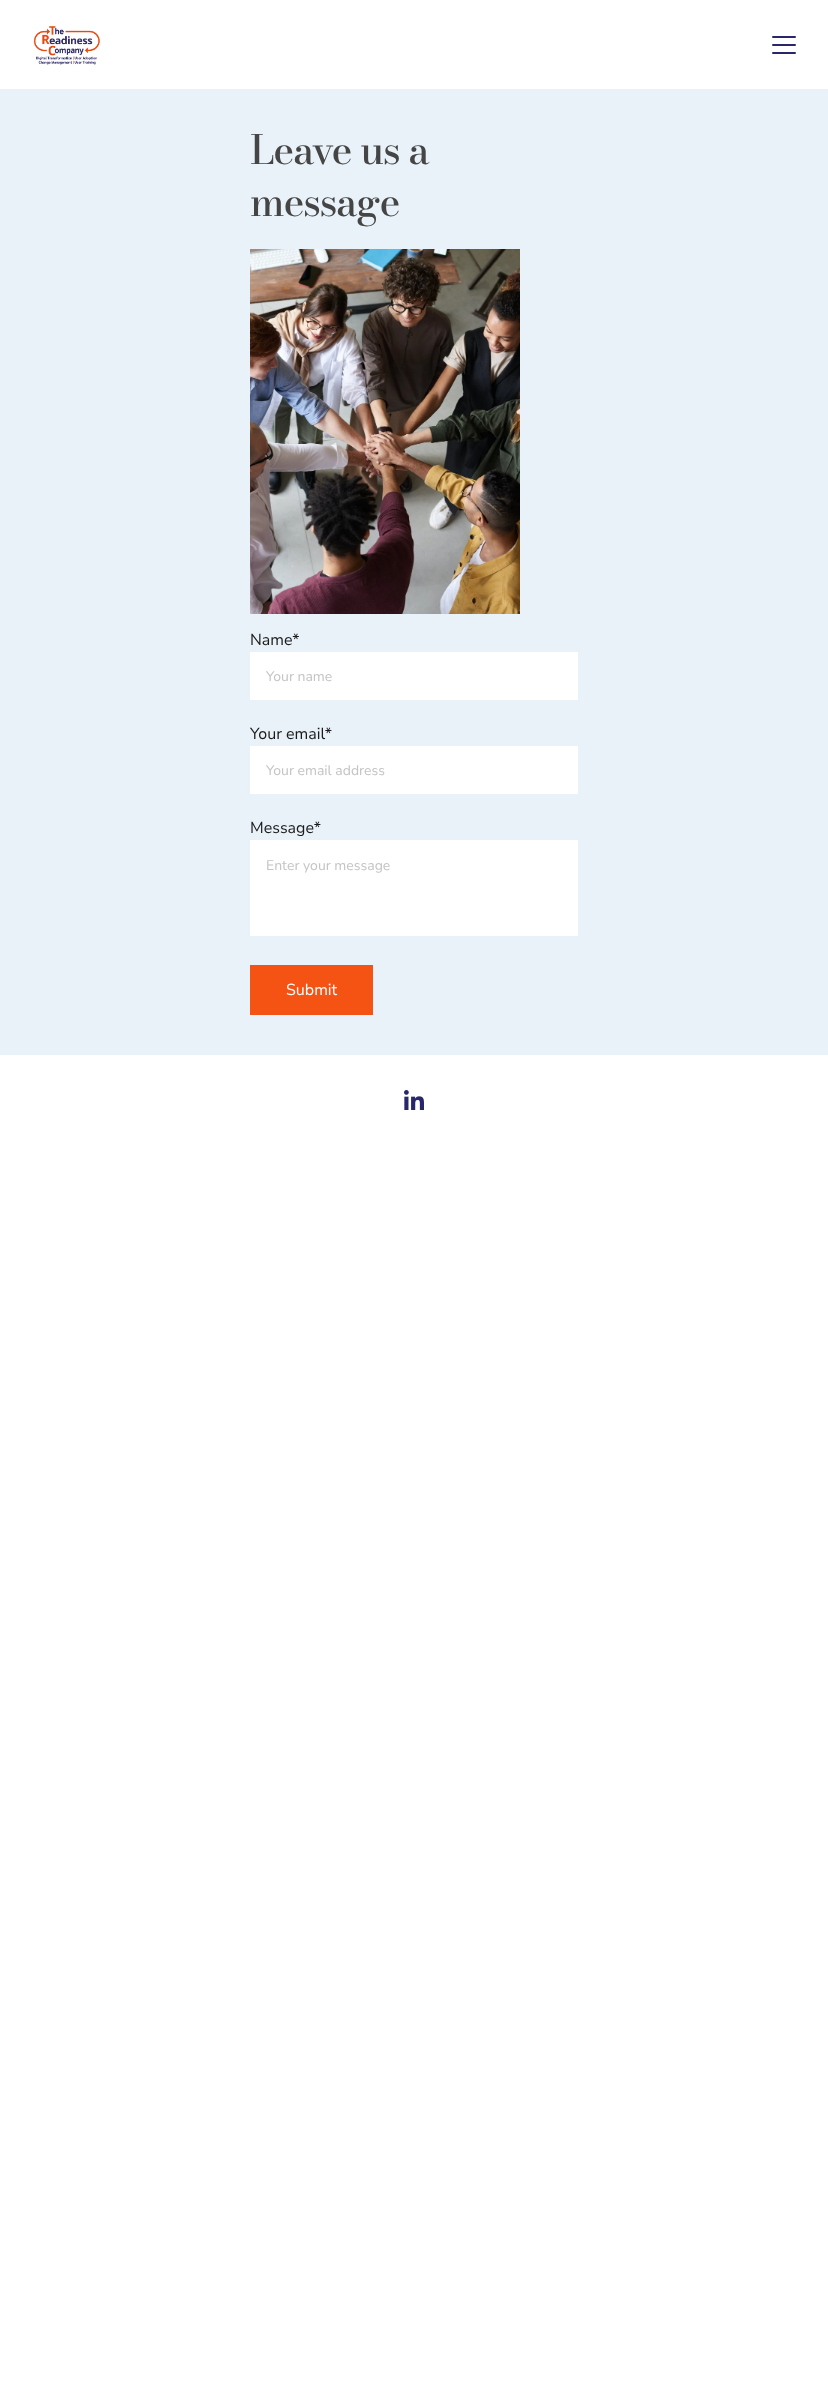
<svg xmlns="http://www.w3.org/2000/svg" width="828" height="2408">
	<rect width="100%" height="100%" fill="#FFFFFF" />
	<image x="34" y="26" width="66" height="39" href="assets/img1.png" />
	<rect x="772" y="36" width="24" height="2" rx="1" fill="#28276C" />
	<rect x="772" y="44" width="24" height="2" rx="1" fill="#28276C" />
	<rect x="772" y="52" width="24" height="2" rx="1" fill="#28276C" />
	<rect x="0" y="89" width="828" height="966" fill="#E9F2F9" />
	<g font-family="Bodoni Moda" font-size="40" font-weight="500" letter-spacing="-1.25" fill="#454545">
		<text x="250" y="164">Leave us a</text>
		<text x="250" y="216">message</text>
	</g>
	<image x="250" y="249" width="270" height="365" href="assets/img2.png" />
	<text x="250" y="645" font-family="Nunito Sans" font-size="16" font-weight="200" fill="#1A1A1A">Name*</text>
	<rect x="250" y="652" width="328" height="48" fill="#FFFFFF" />
	<text x="266" y="681" font-family="Nunito Sans" font-size="14" font-weight="200" fill="#C4C4C4">Your name</text>
	<text x="250" y="739" font-family="Nunito Sans" font-size="16" font-weight="200" fill="#1A1A1A">Your email*</text>
	<rect x="250" y="746" width="328" height="48" fill="#FFFFFF" />
	<text x="266" y="775" font-family="Nunito Sans" font-size="14" font-weight="200" fill="#C4C4C4">Your email address</text>
	<text x="250" y="833" font-family="Nunito Sans" font-size="16" font-weight="200" fill="#1A1A1A">Message*</text>
	<rect x="250" y="840" width="328" height="96" fill="#FFFFFF" />
	<text x="266" y="870" font-family="Nunito Sans" font-size="14" font-weight="200" fill="#C4C4C4">Enter your message</text>
	<rect x="250" y="965" width="123" height="50" fill="#F55314" />
	<text x="286" y="995" font-family="Nunito Sans" font-size="16" font-weight="200" fill="#FFFFFF">Submit</text>
	<image x="404" y="1090" width="20" height="20" href="assets/img3.png" />
</svg>
